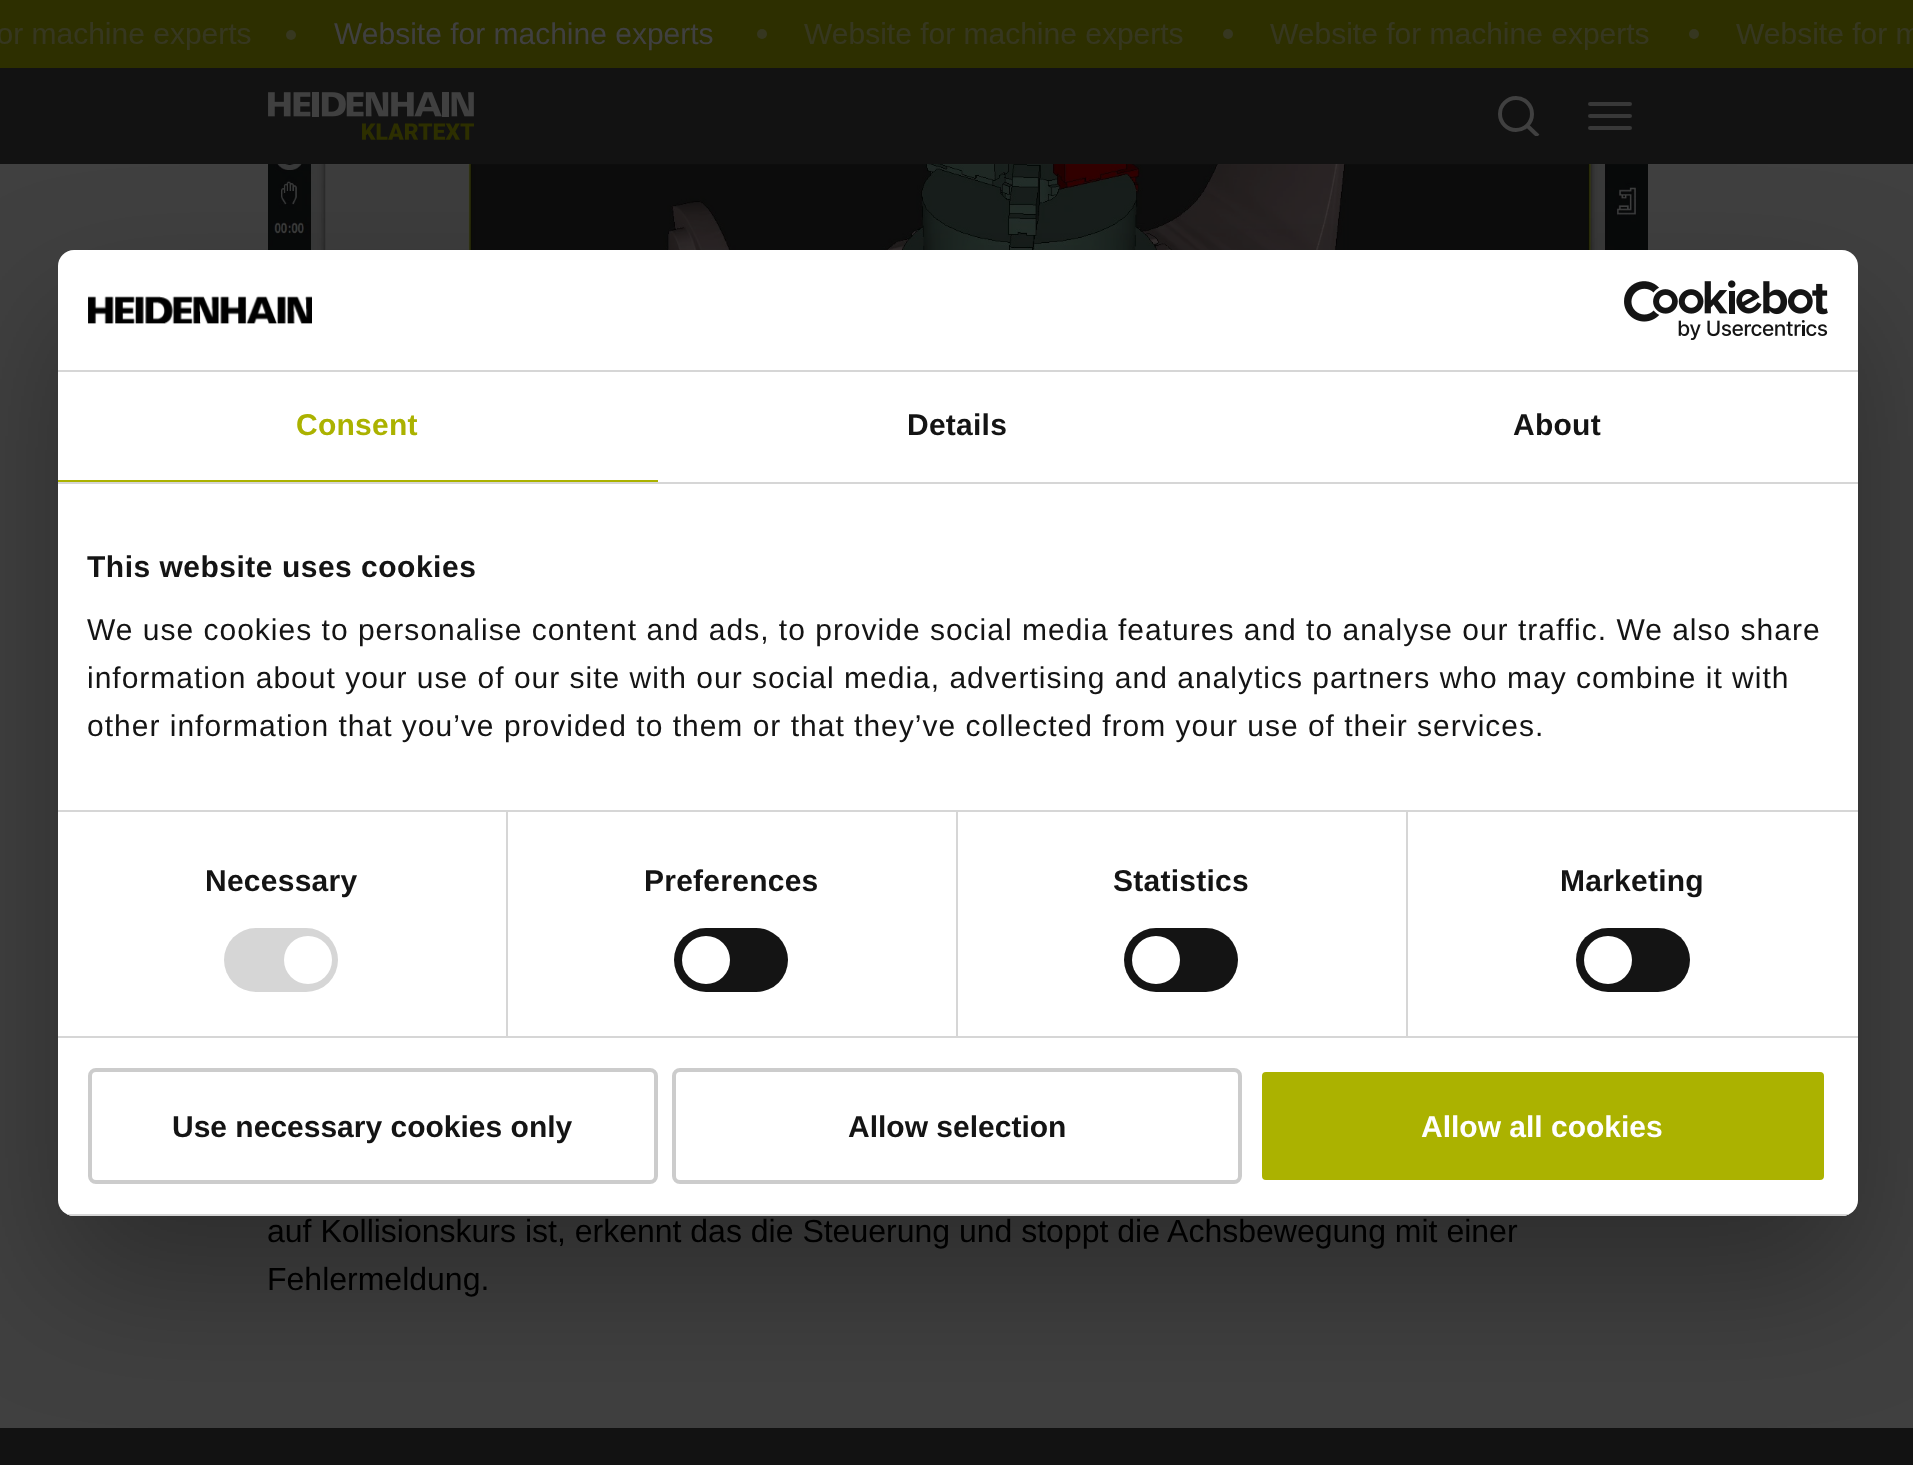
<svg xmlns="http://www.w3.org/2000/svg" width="1913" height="1465">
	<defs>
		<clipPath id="clip1"><rect x="1498" y="96" width="42" height="40" /></clipPath>
		<clipPath id="clip2"><rect x="58" y="250" width="1800" height="966" rx="16" /></clipPath>
	</defs>
	<rect width="100%" height="100%" fill="#404040" />
	<rect x="0" y="68" width="1913" height="96" fill="#121212" />
	<rect x="0" y="0" width="1913" height="68" fill="#2D2F00" />
	<image x="0" y="22" width="251" height="28" href="assets/img1.png" />
	<circle cx="291" cy="35" r="5" fill="#373820" />
	<text x="334" y="44" font-family="Liberation Sans" font-size="30" fill="#404040">Website for machine experts</text>
	<image x="757" y="22" width="1156" height="28" href="assets/img2.png" />
	<image x="268" y="92" width="206" height="48" href="assets/img3.png" />
	<circle cx="1516" cy="114" r="16" fill="none" stroke="#404040" stroke-width="4" />
	<g clip-path="url(#clip1)">
		<path d="M1526.5 125L1538 136" fill="none" stroke="#404040" stroke-width="4" />
	</g>
	<rect x="1588" y="102" width="44" height="4" rx="2" fill="#383838" />
	<rect x="1588" y="114" width="44" height="4" rx="2" fill="#383838" />
	<rect x="1588" y="126" width="44" height="4" rx="2" fill="#383838" />
	<image x="268" y="164" width="1380" height="86" href="assets/img4.png" />
	<g font-family="Liberation Sans" font-size="32" fill="#000000">
		<text x="267" y="1242">auf Kollisionskurs ist, erkennt das die Steuerung und stoppt die Achsbewegung mit einer</text>
		<text x="267" y="1290">Fehlermeldung.</text>
	</g>
	<rect x="0" y="1428" width="1913" height="37" fill="#121212" />
	<rect x="58" y="314" width="1800" height="966" rx="16" fill="#000000" fill-opacity="0.3" filter="blur(68px)" />
	<rect x="58" y="250" width="1800" height="966" rx="16" fill="#FFFFFF" />
	<rect x="58" y="370" width="1800" height="2" fill="#D6D6D6" />
	<image x="88" y="296" width="224" height="28" href="assets/img5.png" />
	<image x="1624" y="280" width="204" height="60" href="assets/img6.png" />
	<rect x="58" y="482" width="1800" height="2" fill="#D6D6D6" />
	<rect x="58" y="480" width="600" height="2" fill="#ABB200" />
	<text x="296" y="435" font-family="Liberation Sans" font-size="30" font-weight="700" letter-spacing="0.25" fill="#ABB200">Consent</text>
	<g font-family="Liberation Sans" font-size="30" font-weight="700" letter-spacing="0.25" fill="#141414">
		<text x="907" y="435">Details</text>
		<text x="1513" y="435">About</text>
	</g>
	<rect x="58" y="810" width="1800" height="2" fill="#D6D6D6" />
	<text x="87" y="577" font-family="Liberation Sans" font-size="30" font-weight="700" letter-spacing="0.5" fill="#141414">This website uses cookies</text>
	<g font-family="Liberation Sans" font-size="30" letter-spacing="1" fill="#141414">
		<text x="87" y="640">We use cookies to personalise content and ads, to provide social media features and to analyse our traffic. We also share</text>
		<text x="87" y="688">information about your use of our site with our social media, advertising and analytics partners who may combine it with</text>
		<text x="87" y="736">other information that you’ve provided to them or that they’ve collected from your use of their services.</text>
	</g>
	<rect x="58" y="1036" width="1800" height="2" fill="#D6D6D6" />
	<rect x="506" y="812" width="2" height="224" fill="#D6D6D6" />
	<text x="205" y="891" font-family="Liberation Sans" font-size="30" font-weight="700" letter-spacing="0.25" fill="#141414">Necessary</text>
	<rect x="224" y="928" width="114" height="64" rx="32" fill="#D6D6D6" />
	<circle cx="308" cy="960" r="24" fill="#FFFFFF" />
	<rect x="956" y="812" width="2" height="224" fill="#D6D6D6" />
	<text x="644" y="891" font-family="Liberation Sans" font-size="30" font-weight="700" letter-spacing="0.25" fill="#141414">Preferences</text>
	<rect x="674" y="928" width="114" height="64" rx="32" fill="#141414" />
	<circle cx="706" cy="960" r="24" fill="#FFFFFF" />
	<rect x="1406" y="812" width="2" height="224" fill="#D6D6D6" />
	<text x="1113" y="891" font-family="Liberation Sans" font-size="30" font-weight="700" letter-spacing="0.25" fill="#141414">Statistics</text>
	<rect x="1124" y="928" width="114" height="64" rx="32" fill="#141414" />
	<circle cx="1156" cy="960" r="24" fill="#FFFFFF" />
	<text x="1560" y="891" font-family="Liberation Sans" font-size="30" font-weight="700" letter-spacing="0.25" fill="#141414">Marketing</text>
	<rect x="1576" y="928" width="114" height="64" rx="32" fill="#141414" />
	<circle cx="1608" cy="960" r="24" fill="#FFFFFF" />
	<g clip-path="url(#clip2)">
		<rect x="58" y="1214" width="1800" height="2" fill="#D6D6D6" />
	</g>
	<rect x="90" y="1070" width="566" height="112" rx="6" fill="none" stroke="#CCCCCC" stroke-width="4" />
	<text x="172" y="1137" font-family="Liberation Sans" font-size="30" font-weight="700" fill="#141414">Use necessary cookies only</text>
	<rect x="674" y="1070" width="566" height="112" rx="6" fill="none" stroke="#CCCCCC" stroke-width="4" />
	<text x="848" y="1137" font-family="Liberation Sans" font-size="30" font-weight="700" fill="#141414">Allow selection</text>
	<rect x="1260" y="1070" width="566" height="112" rx="6" fill="#ABB200" stroke="#FFFFFF" stroke-width="4" />
	<text x="1421" y="1137" font-family="Liberation Sans" font-size="30" font-weight="700" fill="#FFFFFF">Allow all cookies</text>
</svg>
